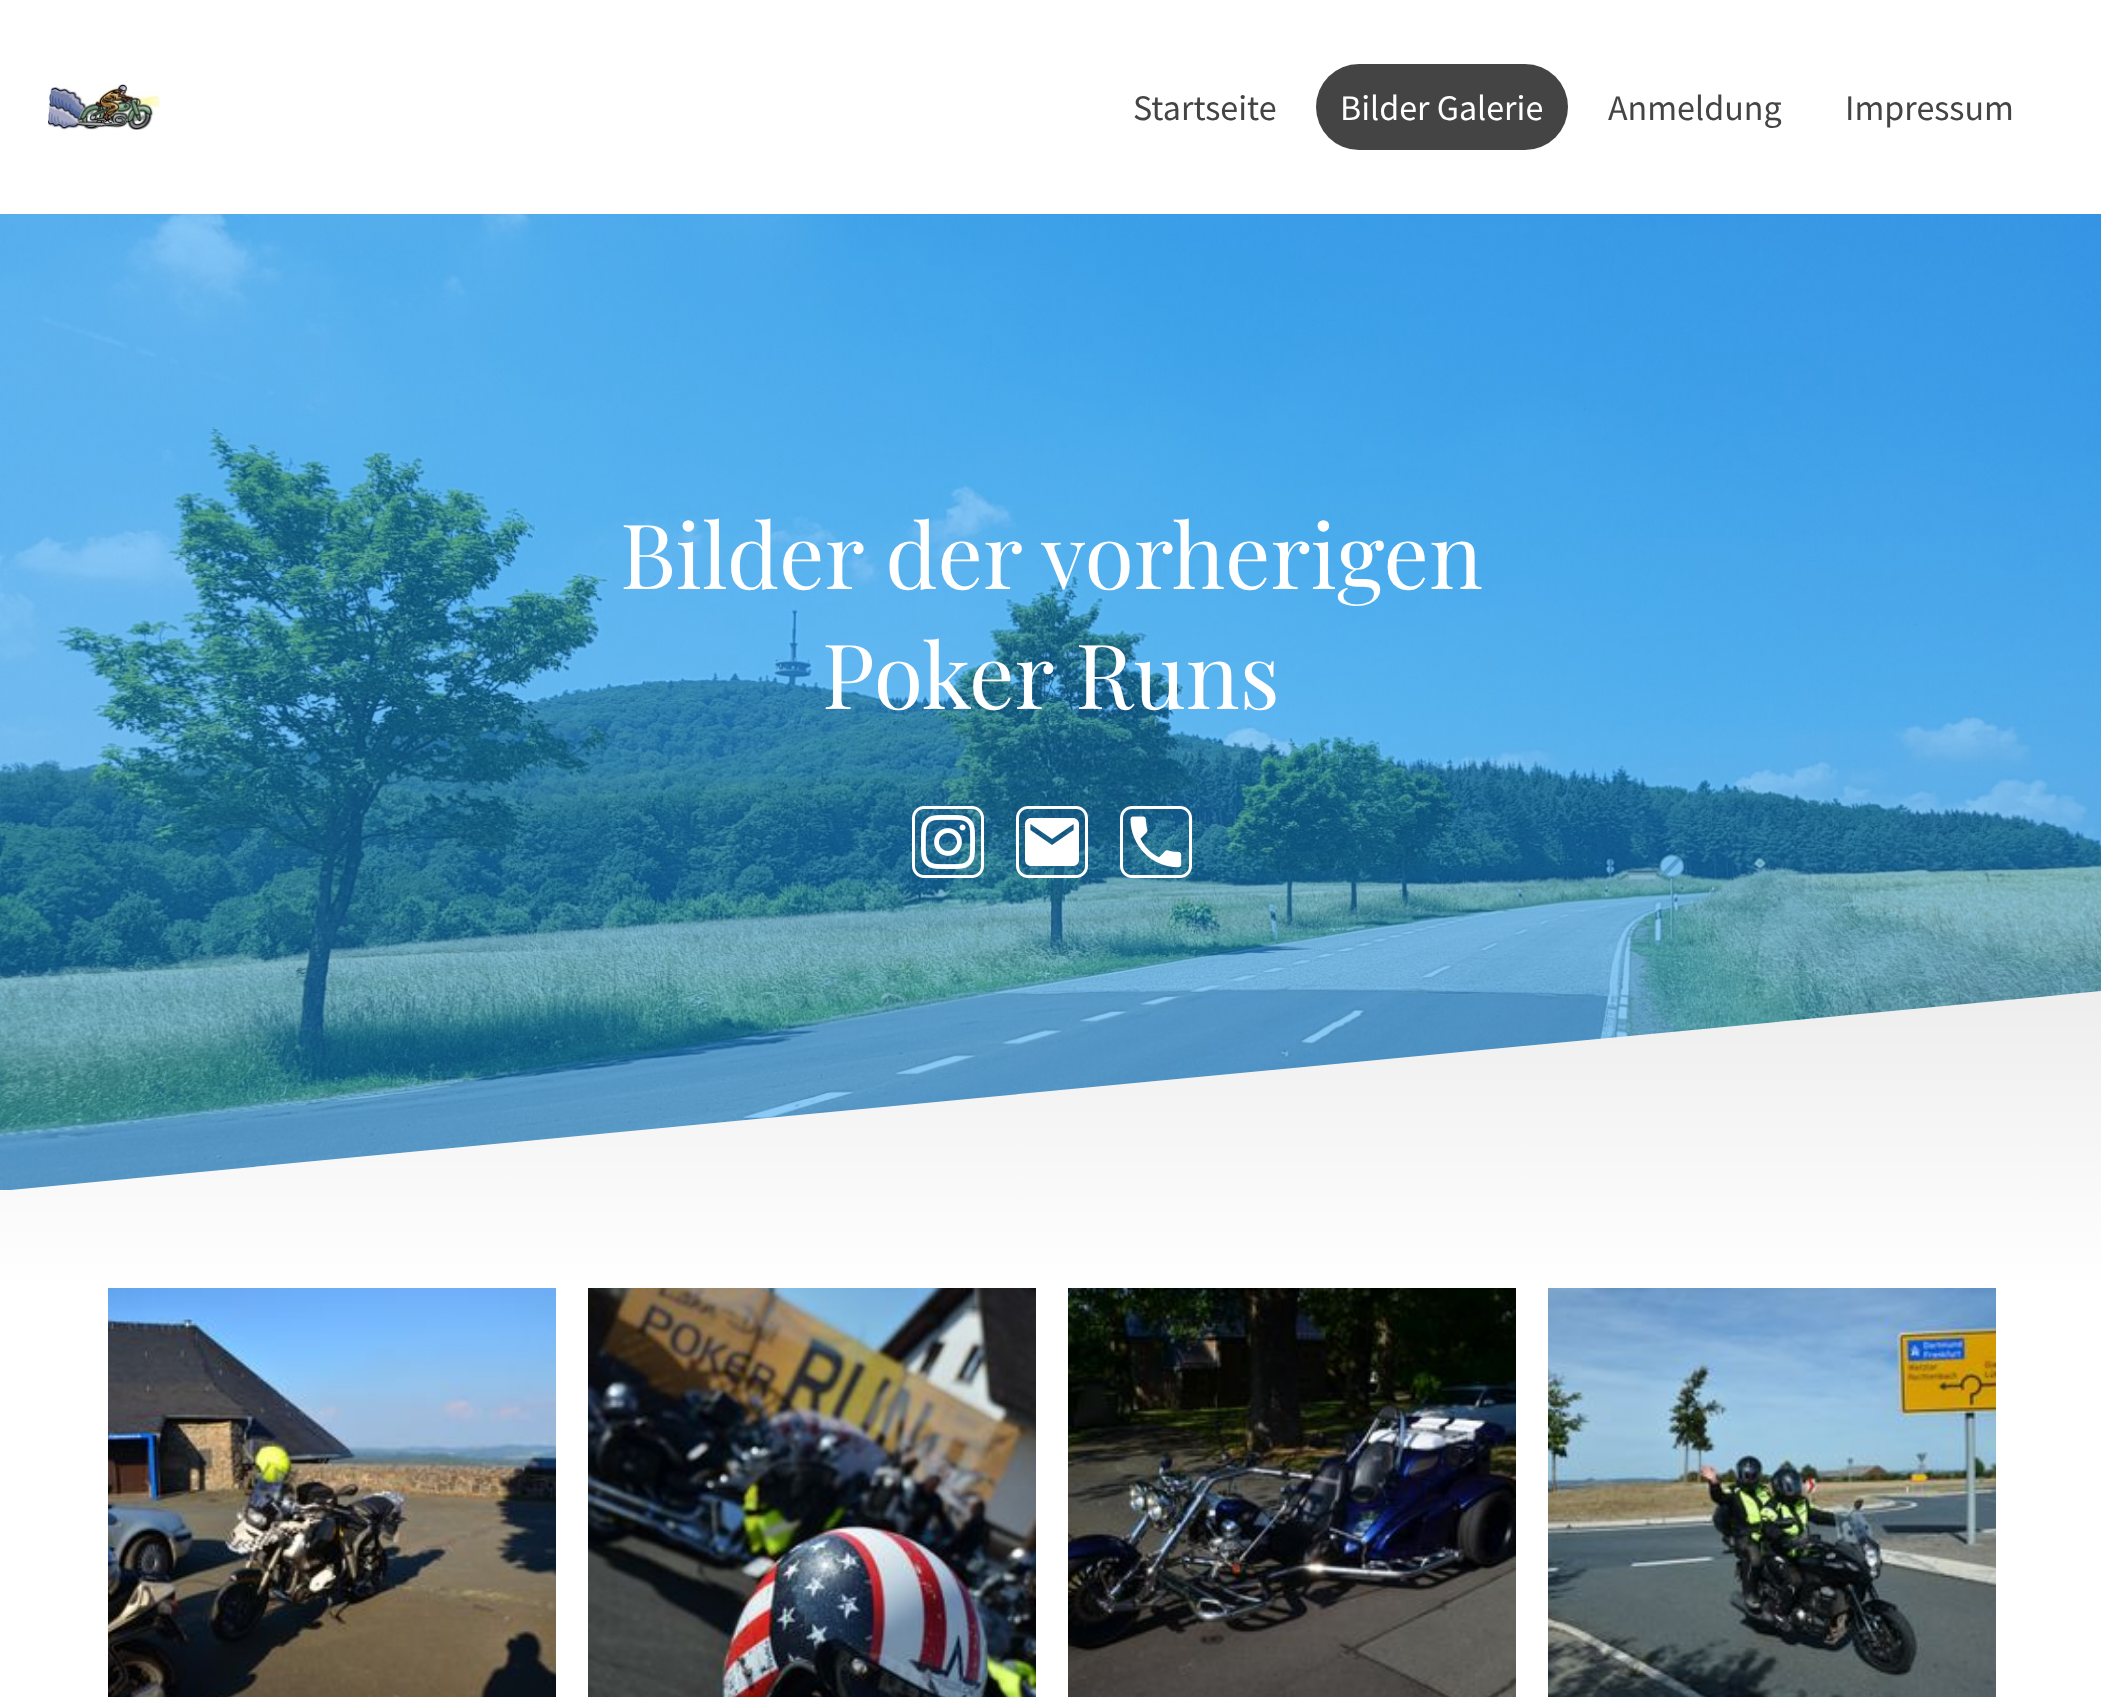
<svg xmlns="http://www.w3.org/2000/svg" width="2101" height="1697">
	<defs>
		<linearGradient id="g1" gradientUnits="userSpaceOnUse" x1="1051" y1="990" x2="1051" y2="1290"><stop offset="0" stop-color="#000000" stop-opacity="0.07" /><stop offset="1" stop-color="#000000" stop-opacity="0" /></linearGradient>
	</defs>
	<rect width="100%" height="100%" fill="#FFFFFF" />
	<image x="48" y="84" width="112" height="46" href="assets/img1.png" />
	<text x="1133" y="120" font-family="Source Sans Pro" font-size="36" fill="#444444">Startseite</text>
	<rect x="1316" y="64" width="252" height="86" rx="43" fill="#444444" />
	<text x="1340" y="120" font-family="Source Sans Pro" font-size="36" fill="#FFFFFF">Bilder Galerie</text>
	<g font-family="Source Sans Pro" font-size="36" fill="#444444">
		<text x="1608" y="120">Anmeldung</text>
		<text x="1845" y="120">Impressum</text>
	</g>
	<image x="0" y="214" width="2101" height="976" href="assets/img2.png" />
	<g font-family="Playfair Display" font-size="90" fill="#FFFFFF">
		<text x="620" y="589">Bilder der vorherigen</text>
		<text x="822" y="709">Poker Runs</text>
	</g>
	<image x="912" y="806" width="72" height="72" href="assets/img3.png" />
	<image x="1016" y="806" width="72" height="72" href="assets/img4.png" />
	<image x="1120" y="806" width="72" height="72" href="assets/img5.png" />
	<path d="M0 1191V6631H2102V991Z" fill="#FFFFFF" />
	<path d="M0 1191V1290H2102V991Z" fill="url(#g1)" />
	<image x="108" y="1288" width="448" height="409" href="assets/img6.png" />
	<image x="588" y="1288" width="448" height="409" href="assets/img7.png" />
	<image x="1068" y="1288" width="448" height="409" href="assets/img8.png" />
	<image x="1548" y="1288" width="448" height="409" href="assets/img9.png" />
</svg>
